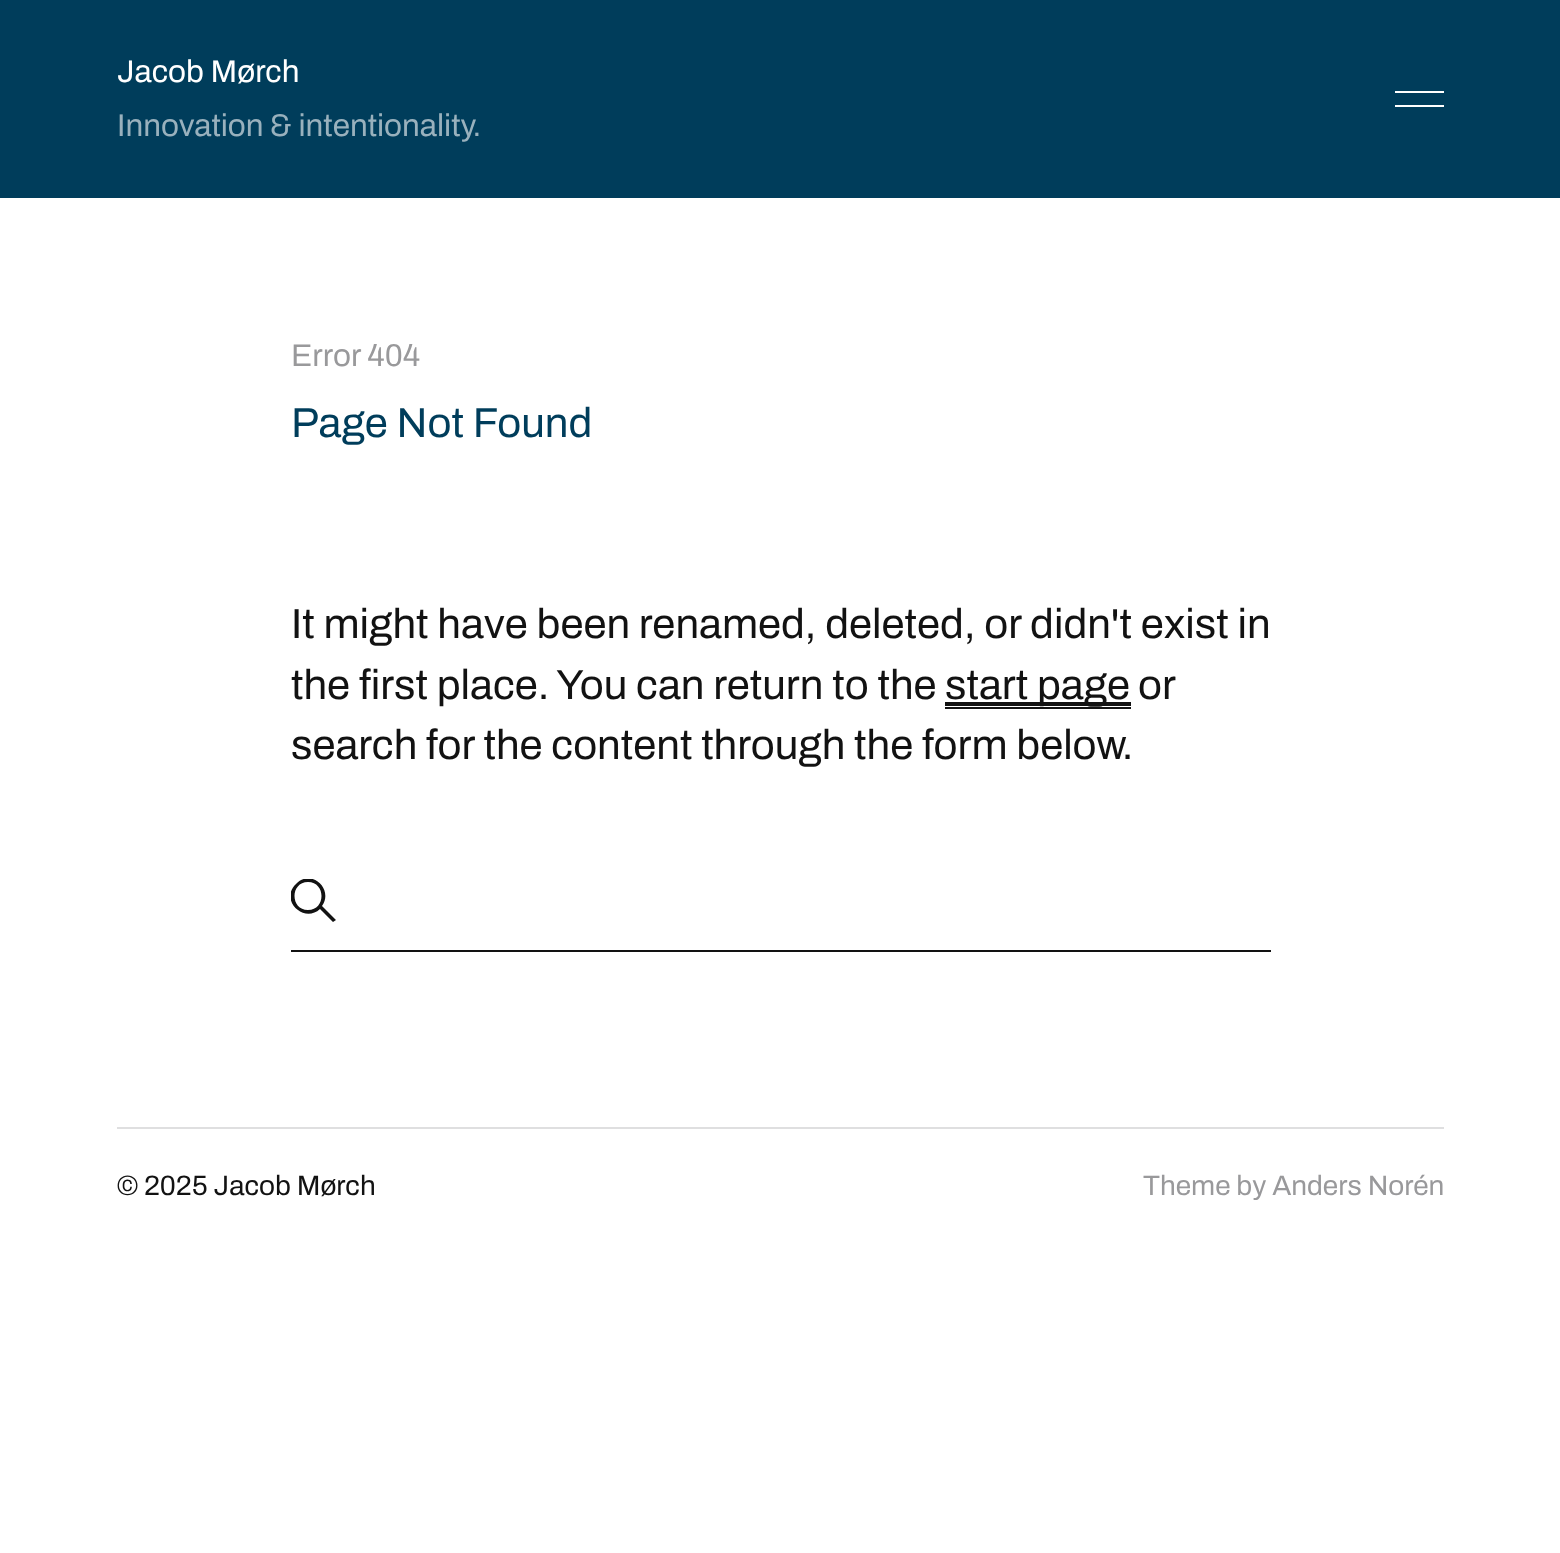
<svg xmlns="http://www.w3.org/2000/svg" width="1560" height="1553">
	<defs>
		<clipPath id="clip1"><rect x="291" y="879" width="45" height="43" /></clipPath>
	</defs>
	<rect width="100%" height="100%" fill="#FFFFFF" />
	<rect x="0" y="0" width="1560" height="198" fill="#003D5B" />
	<text x="117" y="82" font-family="Archivo" font-size="31.5" fill="#FFFFFF">Jacob Mørch</text>
	<rect x="1395" y="91" width="49" height="2" fill="#FFFFFF" />
	<rect x="1395" y="105" width="49" height="2" fill="#FFFFFF" />
	<text x="117" y="136" font-family="Archivo" font-size="31.5" fill="#99B1BD">Innovation &amp; intentionality.</text>
	<text x="291" y="366" font-family="Archivo" font-size="31.5" fill="#99999B">Error 404</text>
	<text x="291" y="437" font-family="Archivo" font-size="42" fill="#003D5B">Page Not Found</text>
	<g font-family="Archivo" font-size="42" fill="#121212">
		<text x="291" y="638">It might have been renamed, deleted, or didn't exist in</text>
		<text x="291" y="699">the first place. You can return to the</text>
	</g>
	<rect x="945" y="702" width="186" height="4" fill="#121212" />
	<text x="945" y="699" font-family="Archivo" font-size="42" fill="#121212">start page</text>
	<rect x="945" y="707" width="186" height="2" fill="#121212" />
	<g font-family="Archivo" font-size="42" fill="#121212">
		<text x="1138" y="699">or</text>
		<text x="291" y="759">search for the content through the form below.</text>
	</g>
	<g clip-path="url(#clip1)">
		<path d="M322 906L336 920L333 922L320 909C304 924 279 900 296 884C311 868 334 889 322 906ZM308 910C326 910 326 882 308 882C290 882 290 910 308 910Z" fill="#121212" fill-rule="evenodd" />
	</g>
	<rect x="291" y="950" width="980" height="2" fill="#121212" />
	<rect x="117" y="1127" width="1327" height="2" fill="#DFDFE0" />
	<text x="117" y="1195" font-family="Archivo" font-size="28" fill="#121212">© 2025 Jacob Mørch</text>
	<text x="1143" y="1195" font-family="Archivo" font-size="28" fill="#99999B">Theme by Anders Norén</text>
</svg>
